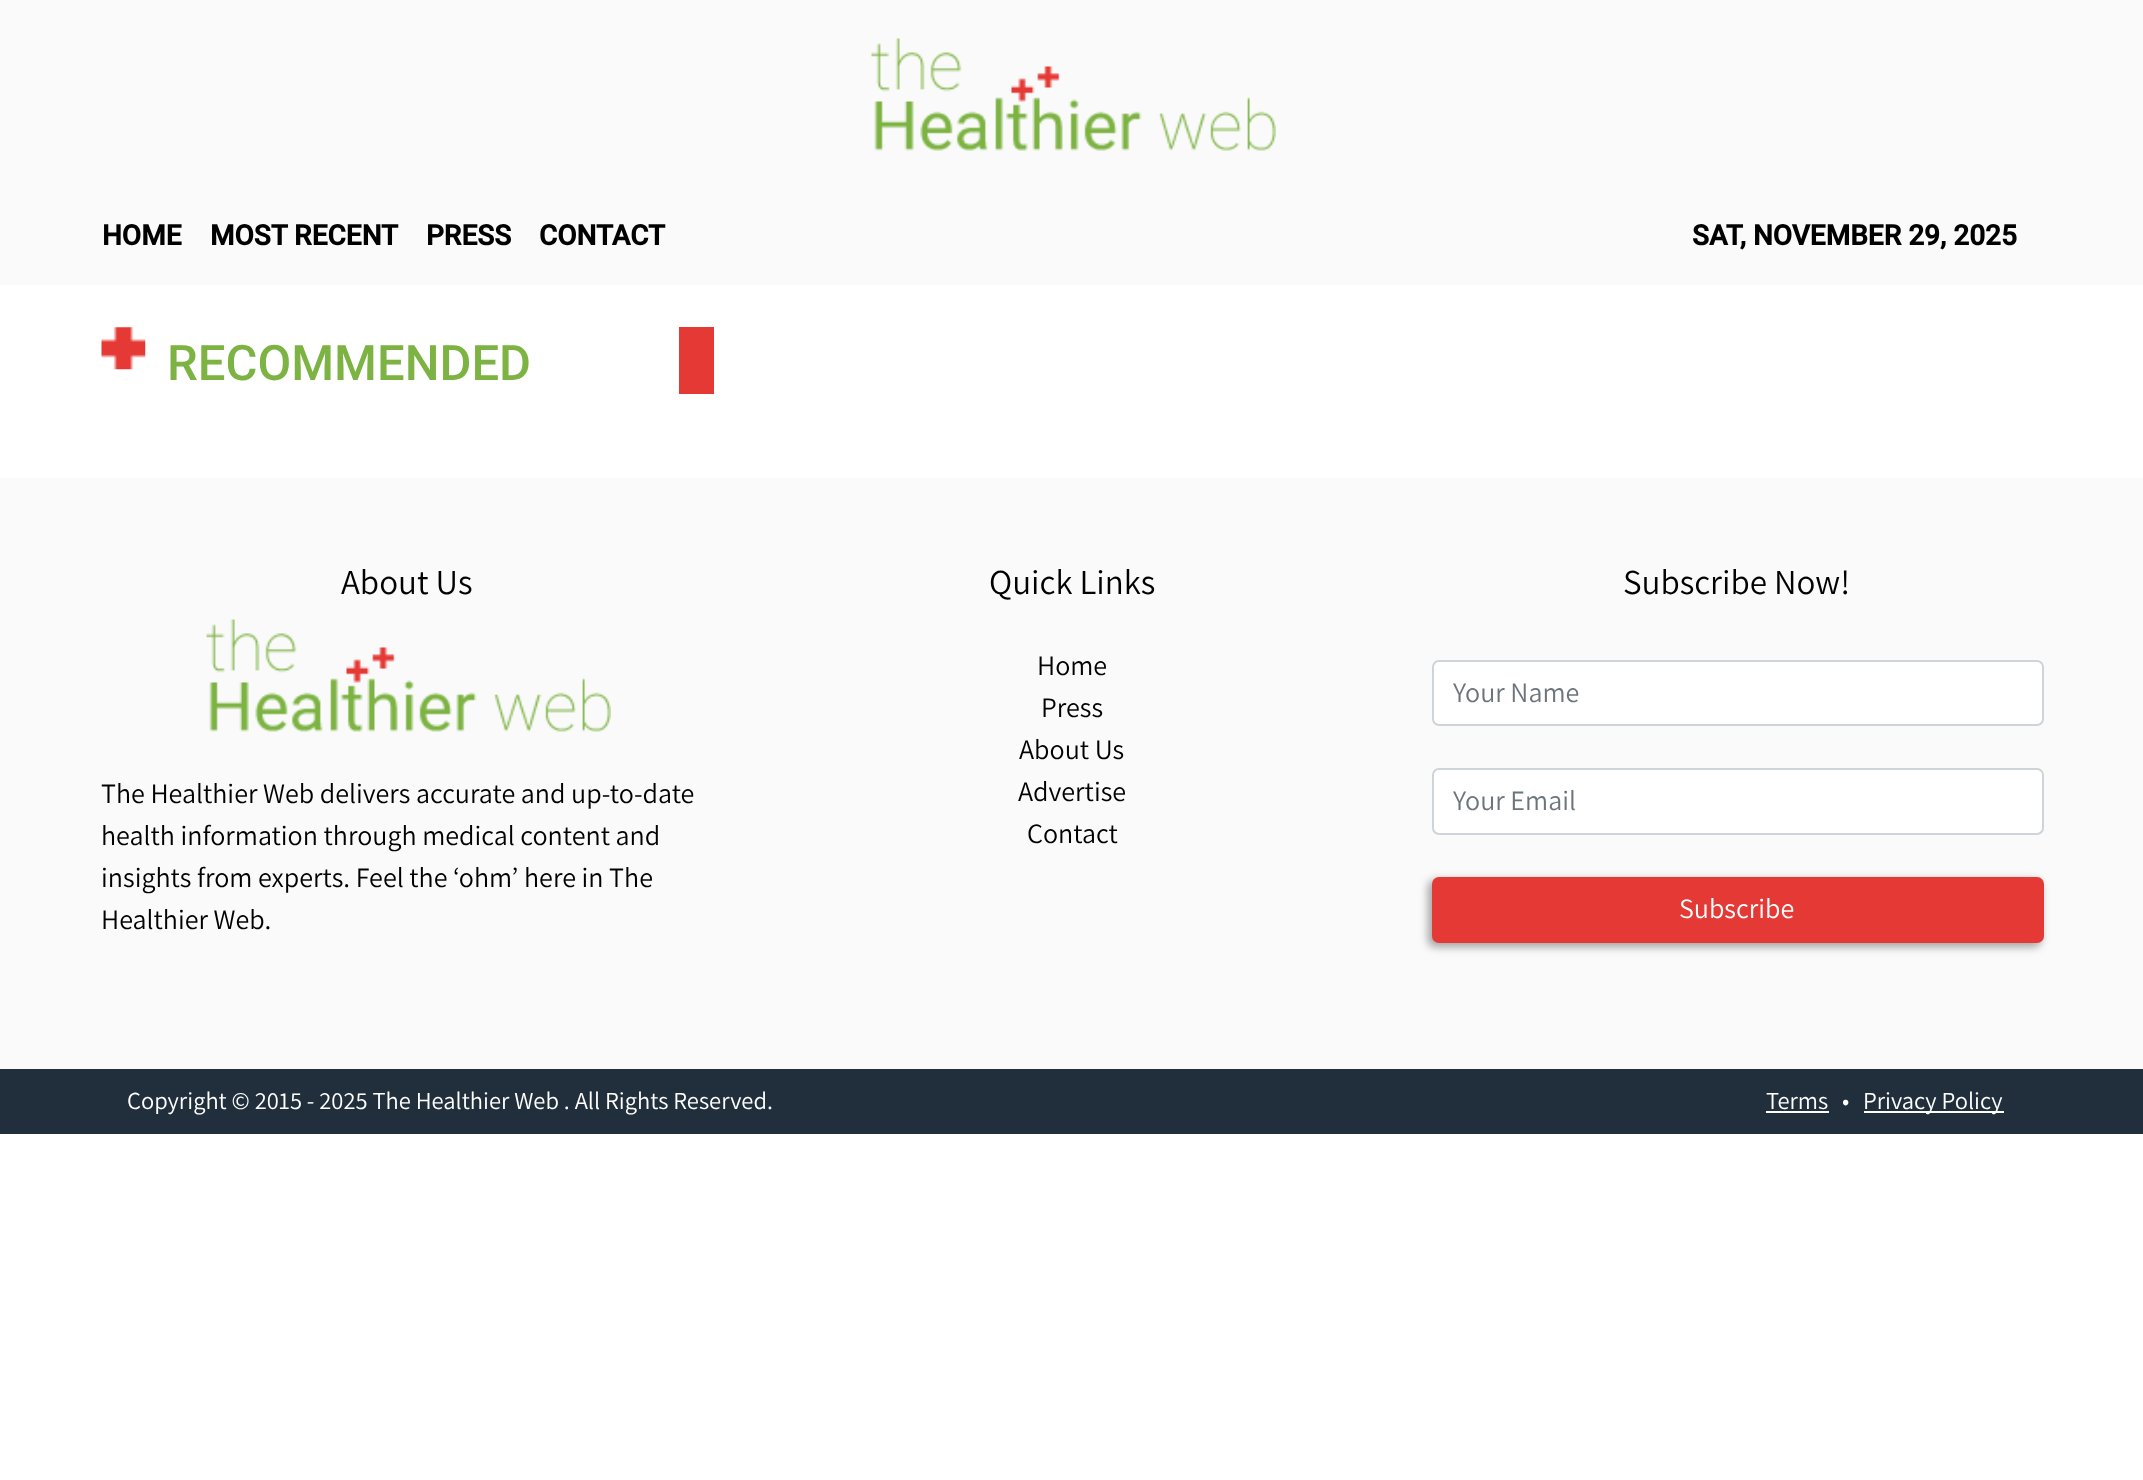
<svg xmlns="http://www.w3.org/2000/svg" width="2143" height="1480">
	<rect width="100%" height="100%" fill="#FFFFFF" />
	<rect x="0" y="0" width="2143" height="285" fill="#FAFAFA" />
	<image x="871" y="38" width="405" height="113" href="assets/img1.png" />
	<g font-family="Roboto" font-size="28" font-weight="700" fill="#000000">
		<text x="102" y="245">HOME</text>
		<text x="210" y="245">MOST RECENT</text>
		<text x="426" y="245">PRESS</text>
		<text x="539" y="245">CONTACT</text>
		<text x="1692" y="245">SAT, NOVEMBER 29, 2025</text>
	</g>
	<image x="101" y="327" width="45" height="43" href="assets/img2.png" />
	<rect x="679" y="327" width="35" height="67" fill="#E53935" />
	<text x="167" y="380" font-family="Roboto" font-size="49" font-weight="500" fill="#7CB342">RECOMMENDED</text>
	<rect x="0" y="478" width="2143" height="591" fill="#FAFAFA" />
	<text x="341" y="594" font-family="Assistant" font-size="35" fill="#000000">About Us</text>
	<image x="206" y="619" width="405" height="113" href="assets/img3.png" />
	<g font-family="Assistant" font-size="28" fill="#000000">
		<text x="101" y="803">The Healthier Web delivers accurate and up-to-date</text>
		<text x="101" y="845">health information through medical content and</text>
		<text x="101" y="887">insights from experts. Feel the ‘ohm’ here in The</text>
		<text x="101" y="929">Healthier Web.</text>
	</g>
	<text x="989" y="594" font-family="Assistant" font-size="35" fill="#000000">Quick Links</text>
	<g font-family="Assistant" font-size="28" fill="#000000">
		<text x="1037" y="675">Home</text>
		<text x="1041" y="717">Press</text>
		<text x="1019" y="759">About Us</text>
		<text x="1018" y="801">Advertise</text>
		<text x="1027" y="843">Contact</text>
	</g>
	<text x="1623" y="594" font-family="Assistant" font-size="35" fill="#000000">Subscribe Now!</text>
	<rect x="1433" y="661" width="610" height="64" rx="6" fill="#FFFFFF" stroke="#CED4DA" stroke-width="2" />
	<text x="1453" y="702" font-family="Assistant" font-size="28" fill="#6C757D">Your Name</text>
	<rect x="1433" y="769" width="610" height="65" rx="6" fill="#FFFFFF" stroke="#CED4DA" stroke-width="2" />
	<text x="1453" y="810" font-family="Assistant" font-size="28" fill="#6C757D">Your Email</text>
	<rect x="1428" y="880" width="613" height="67" rx="7" fill="#000000" fill-opacity="0.35" filter="blur(4.5px)" />
	<rect x="1432" y="877" width="612" height="66" rx="7" fill="#E53935" />
	<text x="1679" y="918" font-family="Assistant" font-size="28" fill="#FFFFFF">Subscribe</text>
	<rect x="0" y="1069" width="2143" height="65" fill="#212F3C" />
	<g font-family="Assistant" font-size="24.5" fill="#FFFFFF">
		<text x="127" y="1109">Copyright © 2015 - 2025 The Healthier Web . All Rights Reserved.</text>
		<text x="1766" y="1109">Terms</text>
	</g>
	<rect x="1766" y="1111" width="63" height="2" fill="#FFFFFF" />
	<text x="1842" y="1109" font-family="Assistant" font-size="24.5" fill="#FFFFFF">•</text>
	<rect x="1864" y="1111" width="140" height="2" fill="#FFFFFF" />
	<text x="1863" y="1109" font-family="Assistant" font-size="24.5" fill="#FFFFFF">Privacy Policy</text>
</svg>
